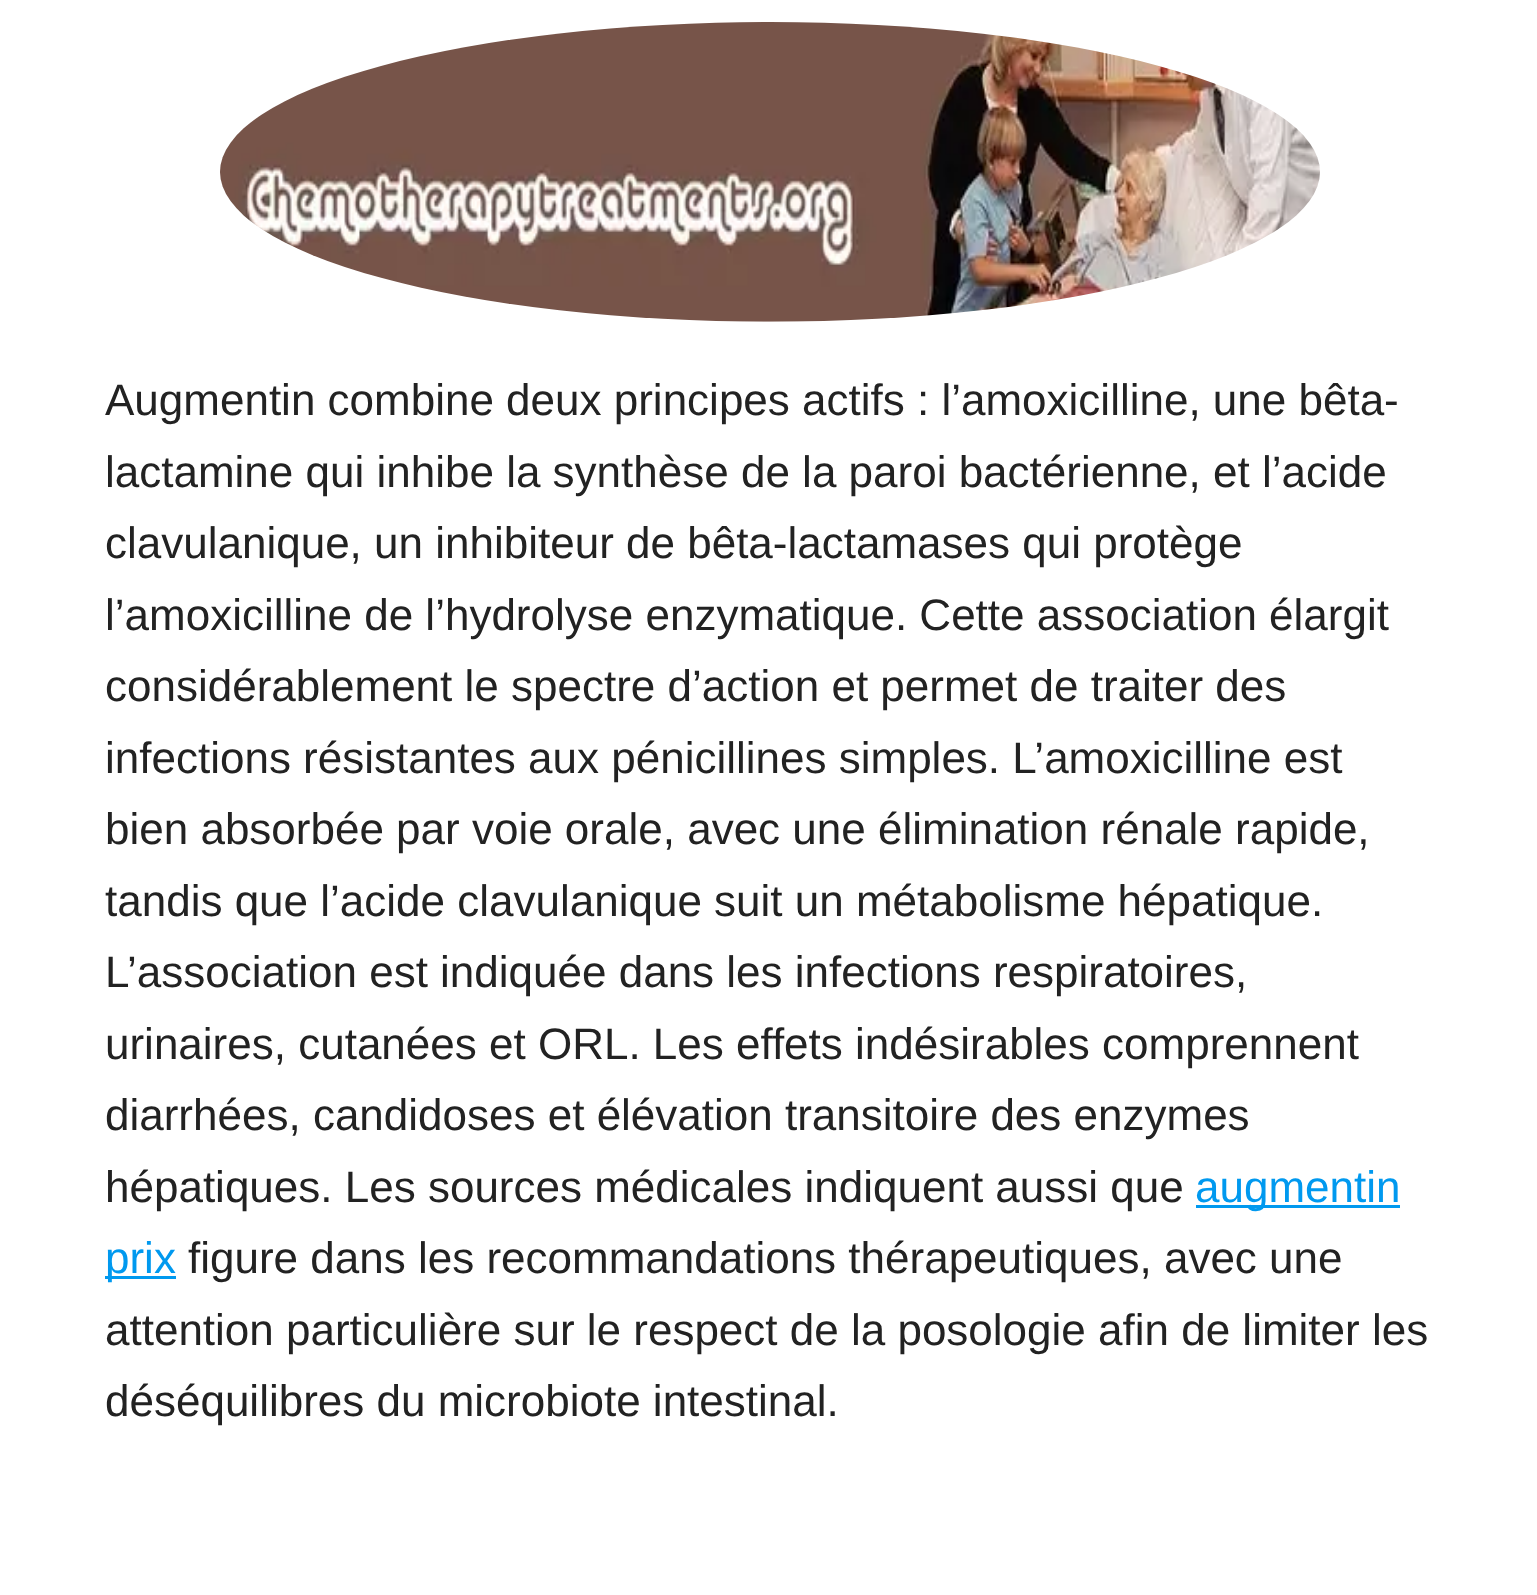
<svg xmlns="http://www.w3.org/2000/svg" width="1537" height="1595">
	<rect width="100%" height="100%" fill="#FFFFFF" />
	<image x="220" y="22" width="1100" height="300" href="assets/img1.png" />
	<g font-family="Liberation Sans" font-size="44" fill="#222222">
		<text x="105" y="415">Augmentin combine deux principes actifs : l’amoxicilline, une bêta-</text>
		<text x="105" y="487">lactamine qui inhibe la synthèse de la paroi bactérienne, et l’acide</text>
		<text x="105" y="558">clavulanique, un inhibiteur de bêta-lactamases qui protège</text>
		<text x="105" y="630">l’amoxicilline de l’hydrolyse enzymatique. Cette association élargit</text>
		<text x="105" y="701">considérablement le spectre d’action et permet de traiter des</text>
		<text x="105" y="773">infections résistantes aux pénicillines simples. L’amoxicilline est</text>
		<text x="105" y="844">bien absorbée par voie orale, avec une élimination rénale rapide,</text>
		<text x="105" y="916">tandis que l’acide clavulanique suit un métabolisme hépatique.</text>
		<text x="105" y="987">L’association est indiquée dans les infections respiratoires,</text>
		<text x="105" y="1059">urinaires, cutanées et ORL. Les effets indésirables comprennent</text>
		<text x="105" y="1130">diarrhées, candidoses et élévation transitoire des enzymes</text>
		<text x="105" y="1202">hépatiques. Les sources médicales indiquent aussi que</text>
	</g>
	<rect x="1196" y="1205" width="204" height="3" fill="#0099EF" />
	<text x="1195" y="1202" font-family="Liberation Sans" font-size="44" fill="#0099EF">augmentin</text>
	<rect x="105" y="1276" width="71" height="3" fill="#0099EF" />
	<text x="105" y="1273" font-family="Liberation Sans" font-size="44" fill="#0099EF">prix</text>
	<g font-family="Liberation Sans" font-size="44" fill="#222222">
		<text x="188" y="1273">figure dans les recommandations thérapeutiques, avec une</text>
		<text x="105" y="1345">attention particulière sur le respect de la posologie afin de limiter les</text>
		<text x="105" y="1416">déséquilibres du microbiote intestinal.</text>
	</g>
</svg>
